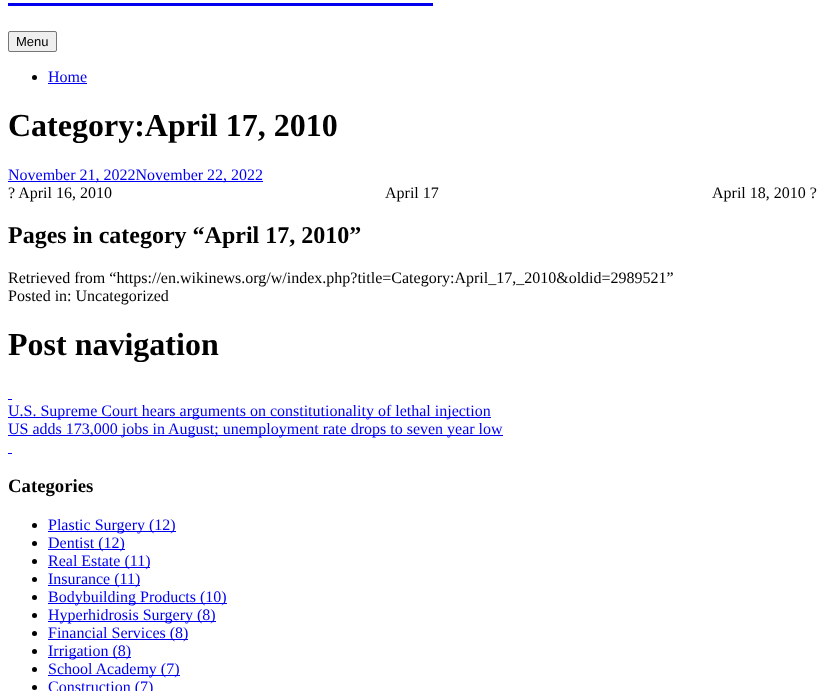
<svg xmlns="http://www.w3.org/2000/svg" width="825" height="691">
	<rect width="100%" height="100%" fill="#FFFFFF" />
	<rect x="8" y="3" width="425" height="3" fill="#0000EE" />
	<rect x="8.5" y="31.5" width="48" height="20" rx="1.5" fill="#EFEFEF" stroke="#767676" />
	<text x="16" y="46" font-family="Liberation Sans" font-size="13" fill="#000000">Menu</text>
	<circle cx="34.5" cy="77.5" r="2.5" fill="#000000" />
	<text x="48" y="82" font-family="Liberation Serif" font-size="16" fill="#0000EE">Home</text>
	<rect x="48" y="83" width="39" height="1" fill="#0000EE" />
	<text x="8" y="136" font-family="Liberation Serif" font-size="32" font-weight="700" fill="#000000">Category:April 17, 2010</text>
	<rect x="8" y="181" width="255" height="1" fill="#0000EE" />
	<text x="8" y="180" font-family="Liberation Serif" font-size="16" fill="#0000EE">November 21, 2022November 22, 2022</text>
	<g font-family="Liberation Serif" font-size="16" fill="#000000">
		<text x="8" y="198">? April 16, 2010</text>
		<text x="385" y="198">April 17</text>
		<text x="712" y="198">April 18, 2010 ?</text>
	</g>
	<text x="8" y="243" font-family="Liberation Serif" font-size="24" font-weight="700" fill="#000000">Pages in category “April 17, 2010”</text>
	<g font-family="Liberation Serif" font-size="16" fill="#000000">
		<text x="8" y="283">Retrieved from “https://en.wikinews.org/w/index.php?title=Category:April_17,_2010&amp;oldid=2989521”</text>
		<text x="8" y="301">Posted in: Uncategorized</text>
	</g>
	<text x="8" y="355" font-family="Liberation Serif" font-size="32" font-weight="700" fill="#000000">Post navigation</text>
	<rect x="8" y="399" width="4" height="1" fill="#0000EE" />
	<rect x="8" y="417" width="483" height="1" fill="#0000EE" />
	<text x="8" y="416" font-family="Liberation Serif" font-size="16" fill="#0000EE">U.S. Supreme Court hears arguments on constitutionality of lethal injection</text>
	<rect x="8" y="435" width="495" height="1" fill="#0000EE" />
	<text x="8" y="434" font-family="Liberation Serif" font-size="16" fill="#0000EE">US adds 173,000 jobs in August; unemployment rate drops to seven year low</text>
	<rect x="8" y="453" width="4" height="1" fill="#0000EE" />
	<text x="8" y="492" font-family="Liberation Serif" font-size="18.75" font-weight="700" fill="#000000">Categories</text>
	<circle cx="34.5" cy="525.5" r="2.5" fill="#000000" />
	<rect x="48" y="531" width="128" height="1" fill="#0000EE" />
	<text x="48" y="530" font-family="Liberation Serif" font-size="16" fill="#0000EE">Plastic Surgery (12)</text>
	<circle cx="34.5" cy="543.5" r="2.5" fill="#000000" />
	<rect x="48" y="549" width="77" height="1" fill="#0000EE" />
	<text x="48" y="548" font-family="Liberation Serif" font-size="16" fill="#0000EE">Dentist (12)</text>
	<circle cx="34.5" cy="561.5" r="2.5" fill="#000000" />
	<rect x="48" y="567" width="102" height="1" fill="#0000EE" />
	<text x="48" y="566" font-family="Liberation Serif" font-size="16" fill="#0000EE">Real Estate (11)</text>
	<circle cx="34.5" cy="579.5" r="2.5" fill="#000000" />
	<rect x="48" y="585" width="92" height="1" fill="#0000EE" />
	<text x="48" y="584" font-family="Liberation Serif" font-size="16" fill="#0000EE">Insurance (11)</text>
	<circle cx="34.5" cy="597.5" r="2.5" fill="#000000" />
	<rect x="48" y="603" width="179" height="1" fill="#0000EE" />
	<text x="48" y="602" font-family="Liberation Serif" font-size="16" fill="#0000EE">Bodybuilding Products (10)</text>
	<circle cx="34.5" cy="615.5" r="2.5" fill="#000000" />
	<rect x="48" y="621" width="168" height="1" fill="#0000EE" />
	<text x="48" y="620" font-family="Liberation Serif" font-size="16" fill="#0000EE">Hyperhidrosis Surgery (8)</text>
	<circle cx="34.5" cy="633.5" r="2.5" fill="#000000" />
	<rect x="48" y="639" width="140" height="1" fill="#0000EE" />
	<text x="48" y="638" font-family="Liberation Serif" font-size="16" fill="#0000EE">Financial Services (8)</text>
	<circle cx="34.5" cy="651.5" r="2.5" fill="#000000" />
	<rect x="48" y="657" width="83" height="1" fill="#0000EE" />
	<text x="48" y="656" font-family="Liberation Serif" font-size="16" fill="#0000EE">Irrigation (8)</text>
	<circle cx="34.5" cy="669.5" r="2.5" fill="#000000" />
	<rect x="48" y="675" width="132" height="1" fill="#0000EE" />
	<text x="48" y="674" font-family="Liberation Serif" font-size="16" fill="#0000EE">School Academy (7)</text>
	<circle cx="34.5" cy="687.5" r="2.5" fill="#000000" />
	<text x="48" y="692" font-family="Liberation Serif" font-size="16" fill="#0000EE">Construction (7)</text>
</svg>
